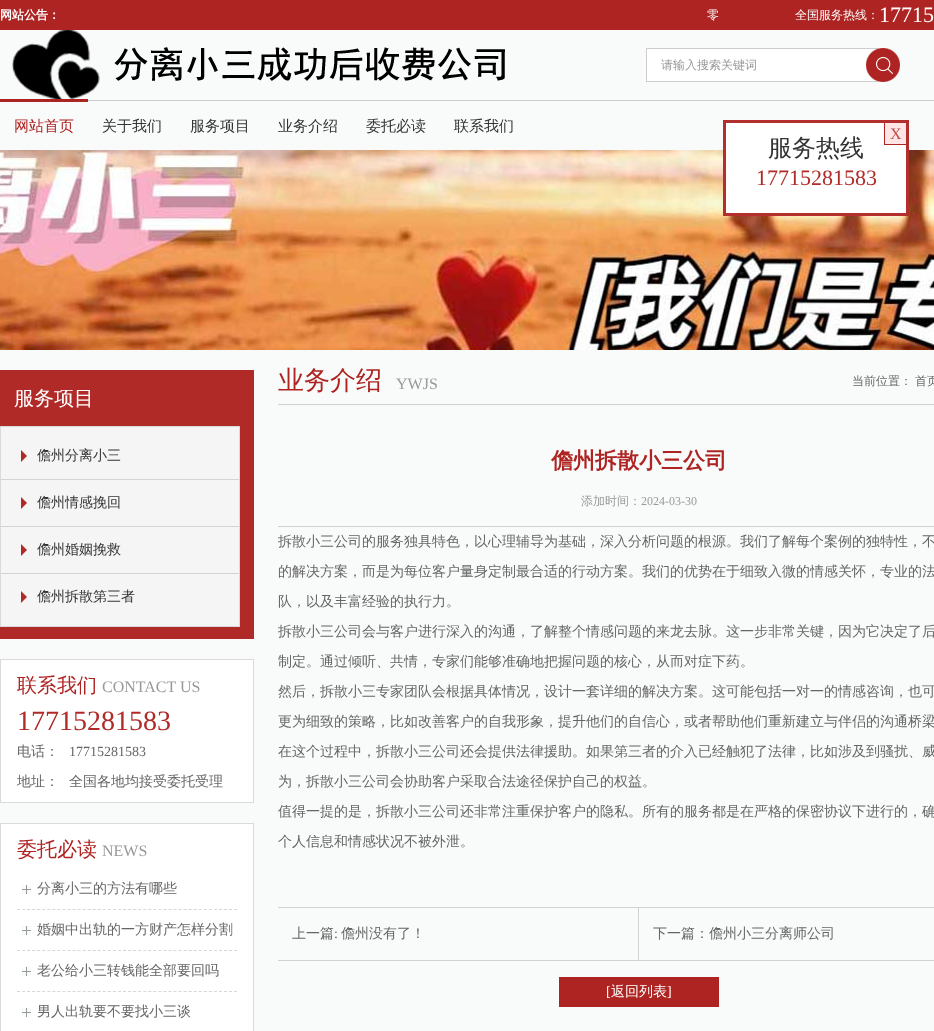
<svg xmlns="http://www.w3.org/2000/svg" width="934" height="1031">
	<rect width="100%" height="100%" fill="#F9FBFA" />
	<rect x="0" y="0" width="934" height="30" fill="#AE2422" />
	<text x="0" y="19" font-family="WenQuanYi Zen Hei" font-size="12" font-weight="700" fill="#FFFFFF">网站公告：</text>
	<g font-family="WenQuanYi Zen Hei" font-size="12" font-weight="500" fill="#FFFFFF">
		<text x="707" y="19">零</text>
		<text x="795" y="19">全国服务热线：</text>
	</g>
	<text x="879" y="22" font-family="Liberation Serif" font-size="22" fill="#FFFFFF">17715</text>
	<image x="12" y="30" width="493" height="69" href="assets/img1.png" />
	<rect x="646.5" y="48.5" width="231" height="33" fill="#FFFFFF" stroke="#CDCDCD" />
	<text x="661" y="69" font-family="WenQuanYi Zen Hei" font-size="12" font-weight="500" fill="#999999">请输入搜索关键词</text>
	<image x="866" y="48" width="34" height="34" href="assets/img2.png" />
	<rect x="88" y="100" width="846" height="1" fill="#CDCDCD" />
	<rect x="0" y="99" width="88" height="3" fill="#AE2422" />
	<text x="14" y="131" font-family="WenQuanYi Zen Hei" font-size="15" font-weight="500" fill="#AE2422">网站首页</text>
	<g font-family="WenQuanYi Zen Hei" font-size="15" font-weight="500" fill="#333333">
		<text x="102" y="131">关于我们</text>
		<text x="190" y="131">服务项目</text>
		<text x="278" y="131">业务介绍</text>
		<text x="366" y="131">委托必读</text>
		<text x="454" y="131">联系我们</text>
	</g>
	<image x="0" y="150" width="934" height="200" href="assets/img3.png" />
	<rect x="724.5" y="121.5" width="183" height="93" fill="#FFFFFF" stroke="#B22F2D" stroke-width="3" />
	<rect x="885" y="123" width="21" height="21" fill="#FFE6E6" />
	<rect x="884" y="144" width="22" height="1" fill="#AE2422" />
	<rect x="884" y="123" width="1" height="22" fill="#AE2422" />
	<text x="890" y="139" font-family="Liberation Serif" font-size="16" fill="#BE4B49">X</text>
	<text x="768" y="156" font-family="WenQuanYi Zen Hei" font-size="24" font-weight="500" fill="#333333">服务热线</text>
	<text x="756" y="185" font-family="Liberation Serif" font-size="22" fill="#B02A28">17715281583</text>
	<rect x="0" y="370" width="254" height="269" fill="#B02A28" />
	<text x="14" y="405" font-family="WenQuanYi Zen Hei" font-size="20" font-weight="500" fill="#FFFFFF">服务项目</text>
	<rect x="0.5" y="426.5" width="239" height="200" fill="#F5F5F5" stroke="#DBDADA" />
	<rect x="1" y="479" width="238" height="1" fill="#D4D4D4" />
	<image x="21" y="450" width="6" height="12" href="assets/img4.png" />
	<text x="37" y="460" font-family="WenQuanYi Zen Hei" font-size="14" font-weight="500" fill="#333333">儋州分离小三</text>
	<rect x="1" y="526" width="238" height="1" fill="#D4D4D4" />
	<image x="21" y="497" width="6" height="12" href="assets/img4.png" />
	<text x="37" y="507" font-family="WenQuanYi Zen Hei" font-size="14" font-weight="500" fill="#333333">儋州情感挽回</text>
	<rect x="1" y="573" width="238" height="1" fill="#D4D4D4" />
	<image x="21" y="544" width="6" height="12" href="assets/img4.png" />
	<text x="37" y="554" font-family="WenQuanYi Zen Hei" font-size="14" font-weight="500" fill="#333333">儋州婚姻挽救</text>
	<image x="21" y="591" width="6" height="12" href="assets/img4.png" />
	<text x="37" y="601" font-family="WenQuanYi Zen Hei" font-size="14" font-weight="500" fill="#333333">儋州拆散第三者</text>
	<rect x="0.5" y="659.5" width="253" height="143" fill="#FFFFFF" stroke="#DBDADA" />
	<text x="17" y="692" font-family="WenQuanYi Zen Hei" font-size="20" font-weight="500" fill="#AE2422">联系我们</text>
	<text x="102" y="692" font-family="Liberation Serif" font-size="16" fill="#999999">CONTACT US</text>
	<text x="17" y="730" font-family="Liberation Serif" font-size="28" fill="#B02A28">17715281583</text>
	<text x="17" y="756" font-family="WenQuanYi Zen Hei" font-size="14" font-weight="500" fill="#666666">电话：</text>
	<text x="69" y="756" font-family="Liberation Serif" font-size="14" fill="#666666">17715281583</text>
	<g font-family="WenQuanYi Zen Hei" font-size="14" font-weight="500" fill="#666666">
		<text x="17" y="786">地址：</text>
		<text x="69" y="786">全国各地均接受委托受理</text>
	</g>
	<rect x="0.5" y="823.5" width="253" height="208" fill="#FFFFFF" stroke="#DBDADA" />
	<text x="17" y="856" font-family="WenQuanYi Zen Hei" font-size="20" font-weight="500" fill="#AE2422">委托必读</text>
	<text x="102" y="856" font-family="Liberation Serif" font-size="16" fill="#999999">NEWS</text>
	<image x="22" y="885" width="9" height="9" href="assets/img5.png" />
	<path d="M17 909.5H237" fill="none" stroke="#D7D7D7" stroke-dasharray="3 2.05" />
	<text x="37" y="893" font-family="WenQuanYi Zen Hei" font-size="14" font-weight="500" fill="#666666">分离小三的方法有哪些</text>
	<image x="22" y="926" width="9" height="9" href="assets/img5.png" />
	<path d="M17 950.5H237" fill="none" stroke="#D7D7D7" stroke-dasharray="3 2.05" />
	<text x="37" y="934" font-family="WenQuanYi Zen Hei" font-size="14" font-weight="500" fill="#666666">婚姻中出轨的一方财产怎样分割</text>
	<image x="22" y="967" width="9" height="9" href="assets/img5.png" />
	<path d="M17 991.5H237" fill="none" stroke="#D7D7D7" stroke-dasharray="3 2.05" />
	<text x="37" y="975" font-family="WenQuanYi Zen Hei" font-size="14" font-weight="500" fill="#666666">老公给小三转钱能全部要回吗</text>
	<image x="22" y="1008" width="9" height="9" href="assets/img5.png" />
	<text x="37" y="1016" font-family="WenQuanYi Zen Hei" font-size="14" font-weight="500" fill="#666666">男人出轨要不要找小三谈</text>
	<rect x="278" y="404" width="656" height="1" fill="#D0D0D0" />
	<text x="278" y="389" font-family="WenQuanYi Zen Hei" font-size="26" font-weight="500" fill="#AE2422">业务介绍</text>
	<text x="396" y="389" font-family="Liberation Serif" font-size="16" fill="#999999">YWJS</text>
	<g font-family="WenQuanYi Zen Hei" font-size="12" font-weight="500" fill="#666666">
		<text x="852" y="385">当前位置：</text>
		<text x="915" y="385">首页</text>
	</g>
	<text x="551" y="468" font-family="WenQuanYi Zen Hei" font-size="22" font-weight="700" fill="#AE2422">儋州拆散小三公司</text>
	<rect x="278" y="526" width="656" height="1" fill="#D2D2D2" />
	<text x="581" y="505" font-family="WenQuanYi Zen Hei" font-size="12" font-weight="500" fill="#999999">添加时间：</text>
	<text x="641" y="505" font-family="Liberation Serif" font-size="12" fill="#999999">2024-03-30</text>
	<g font-family="WenQuanYi Zen Hei" font-size="14" font-weight="500" fill="#666666">
		<text x="278" y="546">拆散小三公司的服务独具特色，以心理辅导为基础，深入分析问题的根源。我们了解每个案例的独特性，不</text>
		<text x="278" y="576">的解决方案，而是为每位客户量身定制最合适的行动方案。我们的优势在于细致入微的情感关怀，专业的法</text>
		<text x="278" y="606">队，以及丰富经验的执行力。</text>
		<text x="278" y="636">拆散小三公司会与客户进行深入的沟通，了解整个情感问题的来龙去脉。这一步非常关键，因为它决定了后</text>
		<text x="278" y="666">制定。通过倾听、共情，专家们能够准确地把握问题的核心，从而对症下药。</text>
		<text x="278" y="696">然后，拆散小三专家团队会根据具体情况，设计一套详细的解决方案。这可能包括一对一的情感咨询，也可</text>
		<text x="278" y="726">更为细致的策略，比如改善客户的自我形象，提升他们的自信心，或者帮助他们重新建立与伴侣的沟通桥梁</text>
		<text x="278" y="756">在这个过程中，拆散小三公司还会提供法律援助。如果第三者的介入已经触犯了法律，比如涉及到骚扰、威</text>
		<text x="278" y="786">为，拆散小三公司会协助客户采取合法途径保护自己的权益。</text>
		<text x="278" y="816">值得一提的是，拆散小三公司还非常注重保护客户的隐私。所有的服务都是在严格的保密协议下进行的，确</text>
		<text x="278" y="846">个人信息和情感状况不被外泄。</text>
	</g>
	<rect x="278" y="907" width="656" height="1" fill="#D2D2D2" />
	<rect x="278" y="960" width="656" height="1" fill="#D2D2D2" />
	<text x="292" y="938" font-family="WenQuanYi Zen Hei" font-size="14" font-weight="500" fill="#666666">上一篇</text>
	<text x="334" y="938" font-family="Liberation Serif" font-size="14" fill="#666666">:</text>
	<text x="341" y="938" font-family="WenQuanYi Zen Hei" font-size="14" font-weight="500" fill="#666666">儋州没有了！</text>
	<rect x="638" y="908" width="1" height="52" fill="#D2D2D2" />
	<text x="653" y="938" font-family="WenQuanYi Zen Hei" font-size="14" font-weight="500" fill="#666666">下一篇：儋州小三分离师公司</text>
	<rect x="559" y="977" width="160" height="30" fill="#AE2422" />
	<text x="606" y="996" font-family="Liberation Serif" font-size="14" fill="#FFFFFF">[</text>
	<text x="611" y="996" font-family="WenQuanYi Zen Hei" font-size="14" font-weight="500" fill="#FFFFFF">返回列表</text>
	<text x="667" y="996" font-family="Liberation Serif" font-size="14" fill="#FFFFFF">]</text>
</svg>
